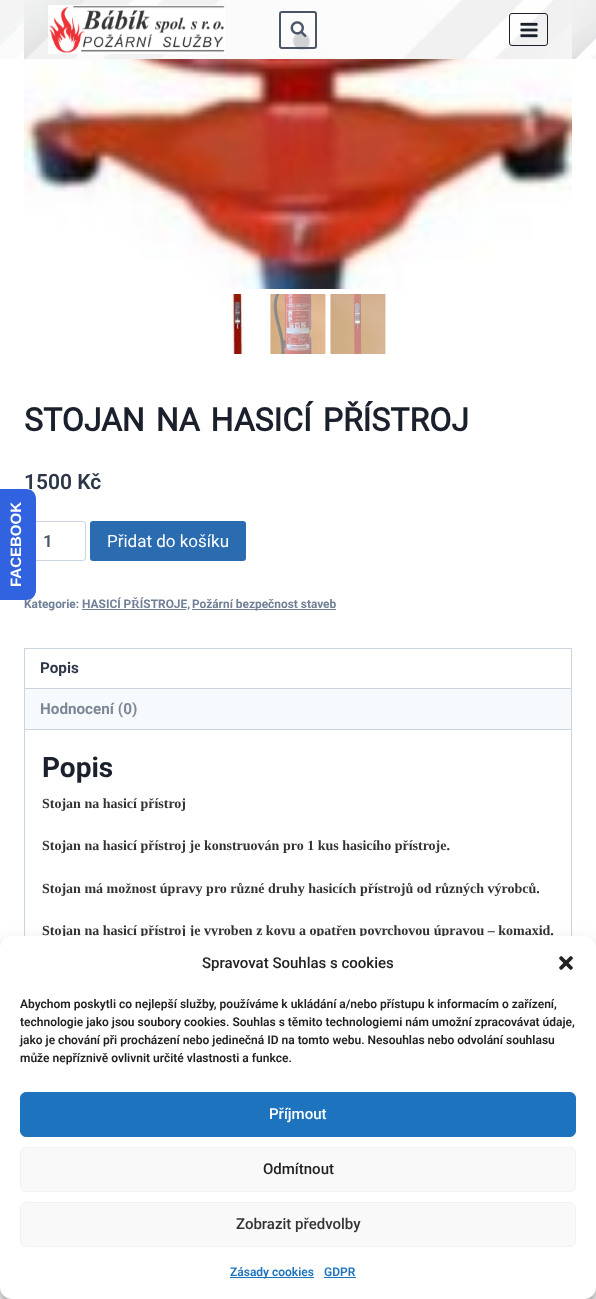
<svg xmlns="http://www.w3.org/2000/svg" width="596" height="1299">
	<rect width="100%" height="100%" fill="#FFFFFF" />
	<text x="24" y="489" font-family="Roboto" font-size="21" font-weight="600" fill="#2D3748">1500 Kč</text>
	<rect x="24.5" y="521.5" width="61" height="39" rx="2.5" fill="none" stroke="#CBD5E0" />
	<text x="24" y="608" font-family="'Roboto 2'" font-size="11.9" font-weight="700" fill="#718096">Kategorie: HASICÍ PŘÍSTROJE,</text>
	<path d="M-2 600V489H26C32 489 36 493 36 499V590C36 596 32 600 26 600Z" fill="#3162E0" />
	<text x="21" y="587" transform="rotate(-90 21 587)" font-family="Liberation Sans" font-size="15" font-weight="700" fill="#FFFFFF">FACEBOOK</text>
	<image x="0" y="0" width="596" height="59" href="assets/img1.png" />
	<image x="24" y="0" width="548" height="59" href="assets/img2.png" />
	<image x="48" y="5" width="177" height="49" href="assets/img3.png" />
	<rect x="280" y="12" width="36" height="36" rx="2" fill="none" stroke="#4A5568" stroke-width="2" />
	<image x="290" y="21" width="17" height="16" href="assets/img4.png" />
	<rect x="509.5" y="13.5" width="38" height="32" rx="2.5" fill="none" stroke="#1A202C" />
	<image x="520" y="22" width="18" height="16" href="assets/img5.png" />
	<image x="24" y="59" width="548" height="262" href="assets/img6.png" />
	<rect x="224" y="289" width="156" height="32" fill="#FFFFFF" />
	<image x="228" y="294" width="18" height="60" href="assets/img7.png" />
	<image x="270" y="294" width="56" height="60" href="assets/img8.png" />
	<image x="330" y="294" width="56" height="60" href="assets/img9.png" />
	<text x="24" y="431" word-spacing="3" font-family="Roboto" font-size="32" font-weight="700" fill="#1A202C">STOJAN NA HASICÍ PŘÍSTROJ</text>
	<text x="43" y="547" font-family="Roboto" font-size="17" font-weight="600" fill="#4A5568">1</text>
	<rect x="90" y="521" width="156" height="40" rx="3" fill="#2B6CB0" />
	<text x="107" y="547" font-family="Roboto" font-size="17" fill="#FFFFFF">Přidat do košíku</text>
	<rect x="192" y="609" width="144" height="1" fill="#718096" />
	<text x="192" y="608" font-family="'Roboto 2'" font-size="11.9" font-weight="700" fill="#718096">Požární bezpečnost staveb</text>
	<rect x="82" y="609" width="104" height="1" fill="#718096" />
	<rect x="24.5" y="648.5" width="547" height="394" fill="none" stroke="#CBD5E0" />
	<rect x="25" y="688" width="546" height="1" fill="#CBD5E0" />
	<text x="40" y="673" font-family="'Roboto 2'" font-size="15.25" font-weight="700" fill="#2D3748">Popis</text>
	<rect x="25" y="689" width="546" height="40" fill="#F7FAFC" />
	<rect x="25" y="729" width="546" height="1" fill="#CBD5E0" />
	<text x="40" y="714" font-family="'Roboto 2'" font-size="15.25" font-weight="700" fill="#7E8794">Hodnocení (0)</text>
	<text x="42" y="777" font-family="'Roboto 2'" font-size="28" font-weight="700" fill="#1A202C">Popis</text>
	<g font-family="Liberation Serif" font-size="14" font-weight="700" fill="#333333">
		<text x="42" y="808">Stojan na hasicí přístroj</text>
		<text x="42" y="850">Stojan na hasicí přístroj je konstruován pro 1 kus hasicího přístroje.</text>
		<text x="42" y="893">Stojan má možnost úpravy pro různé druhy hasicích přístrojů od různých výrobců.</text>
		<text x="42" y="935">Stojan na hasicí přístroj je vyroben z kovu a opatřen povrchovou úpravou – komaxid.</text>
	</g>
	<rect x="0" y="942" width="596" height="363" rx="12" fill="#000000" fill-opacity="0.23" filter="blur(3px)" />
	<rect x="0" y="946" width="596" height="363" rx="12" fill="#000000" fill-opacity="0.19" filter="blur(10px)" />
	<rect x="0" y="936" width="596" height="363" rx="12" fill="#FFFFFF" />
	<text x="202" y="968" font-family="Roboto" font-size="15" font-weight="500" fill="#222222">Spravovat Souhlas s cookies</text>
	<image x="559" y="956" width="14" height="14" href="assets/img10.png" />
	<g font-family="Roboto" font-size="12" font-weight="600" fill="#222222">
		<text x="20" y="1008">Abychom poskytli co nejlepší služby, používáme k ukládání a/nebo přístupu k informacím o zařízení,</text>
		<text x="20" y="1026">technologie jako jsou soubory cookies. Souhlas s těmito technologiemi nám umožní zpracovávat údaje,</text>
		<text x="20" y="1044">jako je chování při procházení nebo jedinečná ID na tomto webu. Nesouhlas nebo odvolání souhlasu</text>
		<text x="20" y="1062">může nepříznivě ovlivnit určité vlastnosti a funkce.</text>
	</g>
	<rect x="20.5" y="1092.5" width="555" height="44" rx="5.5" fill="#1E73BE" stroke="#1E73BE" />
	<text x="269" y="1119" font-family="Roboto" font-size="15" font-weight="500" fill="#FFFFFF">Příjmout</text>
	<rect x="20.5" y="1147.5" width="555" height="44" rx="5.5" fill="#F9F9F9" stroke="#F2F2F2" />
	<text x="263" y="1174" font-family="Roboto" font-size="15" font-weight="500" fill="#222222">Odmítnout</text>
	<rect x="20.5" y="1202.5" width="555" height="44" rx="5.5" fill="#F9F9F9" stroke="#F2F2F2" />
	<text x="236" y="1229" font-family="Roboto" font-size="15" font-weight="500" fill="#333333">Zobrazit předvolby</text>
	<rect x="230" y="1277" width="84" height="1" fill="#1E73BE" />
	<g font-family="Roboto" font-size="12" font-weight="600" fill="#1E73BE">
		<text x="230" y="1276">Zásady cookies</text>
		<text x="324" y="1276">GDPR</text>
	</g>
	<rect x="324" y="1277" width="32" height="1" fill="#1E73BE" />
</svg>
